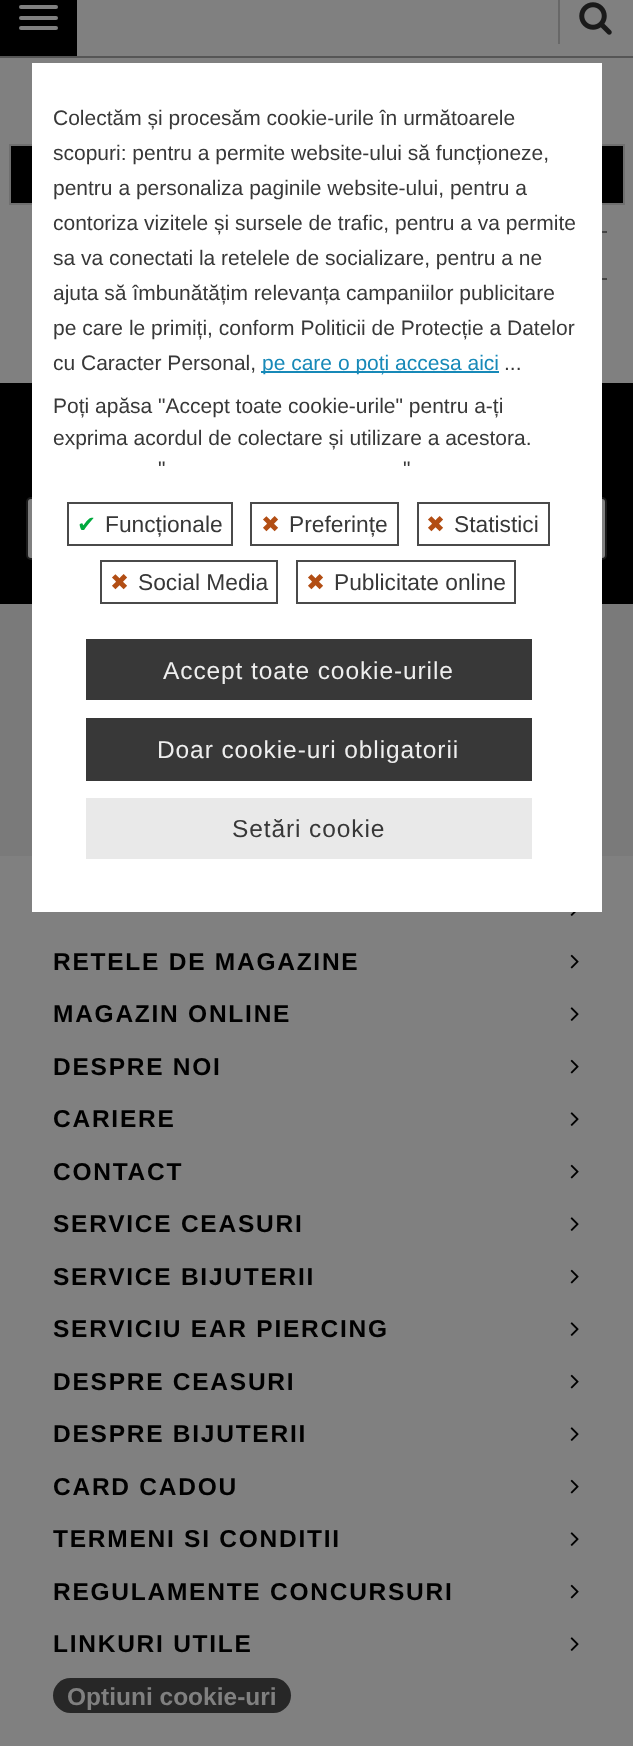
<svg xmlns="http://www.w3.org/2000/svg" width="633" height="1746">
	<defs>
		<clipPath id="clip1"><rect x="26" y="231" width="581" height="65" /></clipPath>
	</defs>
	<rect width="100%" height="100%" fill="#808080" />
	<rect x="0" y="56" width="633" height="2" fill="#555555" />
	<rect x="0" y="0" width="77" height="56" fill="#000000" />
	<rect x="19" y="5" width="39" height="4" rx="2" fill="#808080" />
	<rect x="19" y="16" width="39" height="4" rx="2" fill="#808080" />
	<rect x="19" y="26" width="39" height="4" rx="2" fill="#808080" />
	<rect x="558" y="0" width="2" height="44" fill="#686868" />
	<image x="579" y="2" width="33" height="33" href="assets/img1.png" />
	<rect x="10" y="145" width="614" height="59" fill="#000000" stroke="#6F6F6F" stroke-width="2" />
	<g clip-path="url(#clip1)">
		<rect x="580" y="232" width="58" height="47" rx="3" fill="none" stroke="#444444" stroke-width="2" />
	</g>
	<rect x="0" y="383" width="633" height="221" fill="#000000" />
	<rect x="27" y="498" width="579" height="61" rx="4" fill="#808080" stroke="#1B1B1B" stroke-width="2" />
	<rect x="0" y="604" width="633" height="252" fill="#7A7A7A" />
	<rect x="32" y="63" width="570" height="849" fill="#FFFFFF" />
	<g font-family="Liberation Sans" font-size="21" fill="#383838">
		<text x="53" y="125">Colectăm și procesăm cookie-urile în următoarele</text>
		<text x="53" y="160">scopuri: pentru a permite website-ului să funcționeze,</text>
		<text x="53" y="195">pentru a personaliza paginile website-ului, pentru a</text>
		<text x="53" y="230">contoriza vizitele și sursele de trafic, pentru a va permite</text>
		<text x="53" y="265">sa va conectati la retelele de socializare, pentru a ne</text>
		<text x="53" y="300">ajuta să îmbunătățim relevanța campaniilor publicitare</text>
		<text x="53" y="335">pe care le primiți, conform Politicii de Protecție a Datelor</text>
		<text x="53" y="370">cu Caracter Personal,</text>
	</g>
	<rect x="261" y="371" width="238" height="2" fill="#1789B8" />
	<text x="262" y="370" font-family="Liberation Sans" font-size="21" fill="#1789B8">pe care o poți accesa aici</text>
	<g font-family="Liberation Sans" font-size="21" fill="#383838">
		<text x="504" y="370">...</text>
		<text x="53" y="413">Poți apăsa "Accept toate cookie-urile" pentru a-ți</text>
		<text x="53" y="445">exprima acordul de colectare și utilizare a acestora.</text>
		<text x="158" y="476">"</text>
		<text x="403" y="476">"</text>
	</g>
	<rect x="68" y="503" width="164" height="42" fill="none" stroke="#4A4A4A" stroke-width="2" />
	<text x="77" y="532" font-family="DejaVu Sans" font-size="22.75" fill="#00AA3E">✔</text>
	<text x="105" y="532" font-family="Liberation Sans" font-size="22.75" fill="#383838">Funcționale</text>
	<rect x="251" y="503" width="147" height="42" fill="none" stroke="#4A4A4A" stroke-width="2" />
	<text x="261" y="532" font-family="DejaVu Sans" font-size="22.75" fill="#B24E14">✖</text>
	<text x="289" y="532" font-family="Liberation Sans" font-size="22.75" fill="#383838">Preferințe</text>
	<rect x="418" y="503" width="131" height="42" fill="none" stroke="#4A4A4A" stroke-width="2" />
	<text x="426" y="532" font-family="DejaVu Sans" font-size="22.75" fill="#B24E14">✖</text>
	<text x="454" y="532" font-family="Liberation Sans" font-size="22.75" fill="#383838">Statistici</text>
	<rect x="101" y="561" width="176" height="42" fill="none" stroke="#4A4A4A" stroke-width="2" />
	<text x="110" y="590" font-family="DejaVu Sans" font-size="22.75" fill="#B24E14">✖</text>
	<text x="138" y="590" font-family="Liberation Sans" font-size="22.75" fill="#383838">Social Media</text>
	<rect x="297" y="561" width="218" height="42" fill="none" stroke="#4A4A4A" stroke-width="2" />
	<text x="306" y="590" font-family="DejaVu Sans" font-size="22.75" fill="#B24E14">✖</text>
	<text x="334" y="590" font-family="Liberation Sans" font-size="22.75" fill="#383838">Publicitate online</text>
	<rect x="86" y="639" width="446" height="61" fill="#383838" />
	<text x="163" y="679" font-family="Liberation Sans" font-size="24.5" letter-spacing="0.9" fill="#EEEEEE">Accept toate cookie-urile</text>
	<rect x="86" y="718" width="446" height="63" fill="#383838" />
	<text x="157" y="758" font-family="Liberation Sans" font-size="24.5" letter-spacing="0.9" fill="#EEEEEE">Doar cookie-uri obligatorii</text>
	<rect x="86" y="798" width="446" height="61" fill="#E9E9E9" />
	<text x="232" y="837" font-family="Liberation Sans" font-size="24.5" letter-spacing="0.9" fill="#383838">Setări cookie</text>
	<image x="570" y="912" width="6" height="4" href="assets/img2.png" />
	<text x="53" y="970" font-family="Liberation Sans" font-size="24.5" font-weight="700" letter-spacing="1.75" fill="#000000">RETELE DE MAGAZINE</text>
	<image x="570" y="954" width="9" height="15" href="assets/img3.png" />
	<text x="53" y="1022" font-family="Liberation Sans" font-size="24.5" font-weight="700" letter-spacing="1.75" fill="#000000">MAGAZIN ONLINE</text>
	<image x="570" y="1007" width="9" height="14" href="assets/img4.png" />
	<text x="53" y="1075" font-family="Liberation Sans" font-size="24.5" font-weight="700" letter-spacing="1.75" fill="#000000">DESPRE NOI</text>
	<image x="570" y="1059" width="9" height="15" href="assets/img3.png" />
	<text x="53" y="1127" font-family="Liberation Sans" font-size="24.5" font-weight="700" letter-spacing="1.75" fill="#000000">CARIERE</text>
	<image x="570" y="1112" width="9" height="14" href="assets/img4.png" />
	<text x="53" y="1180" font-family="Liberation Sans" font-size="24.5" font-weight="700" letter-spacing="1.75" fill="#000000">CONTACT</text>
	<image x="570" y="1164" width="9" height="15" href="assets/img3.png" />
	<text x="53" y="1232" font-family="Liberation Sans" font-size="24.5" font-weight="700" letter-spacing="1.75" fill="#000000">SERVICE CEASURI</text>
	<image x="570" y="1217" width="9" height="14" href="assets/img4.png" />
	<text x="53" y="1285" font-family="Liberation Sans" font-size="24.5" font-weight="700" letter-spacing="1.75" fill="#000000">SERVICE BIJUTERII</text>
	<image x="570" y="1269" width="9" height="15" href="assets/img3.png" />
	<text x="53" y="1337" font-family="Liberation Sans" font-size="24.5" font-weight="700" letter-spacing="1.75" fill="#000000">SERVICIU EAR PIERCING</text>
	<image x="570" y="1322" width="9" height="14" href="assets/img4.png" />
	<text x="53" y="1390" font-family="Liberation Sans" font-size="24.5" font-weight="700" letter-spacing="1.75" fill="#000000">DESPRE CEASURI</text>
	<image x="570" y="1374" width="9" height="15" href="assets/img3.png" />
	<text x="53" y="1442" font-family="Liberation Sans" font-size="24.5" font-weight="700" letter-spacing="1.75" fill="#000000">DESPRE BIJUTERII</text>
	<image x="570" y="1427" width="9" height="14" href="assets/img4.png" />
	<text x="53" y="1495" font-family="Liberation Sans" font-size="24.5" font-weight="700" letter-spacing="1.75" fill="#000000">CARD CADOU</text>
	<image x="570" y="1479" width="9" height="15" href="assets/img3.png" />
	<text x="53" y="1547" font-family="Liberation Sans" font-size="24.5" font-weight="700" letter-spacing="1.75" fill="#000000">TERMENI SI CONDITII</text>
	<image x="570" y="1532" width="9" height="14" href="assets/img4.png" />
	<text x="53" y="1600" font-family="Liberation Sans" font-size="24.5" font-weight="700" letter-spacing="1.75" fill="#000000">REGULAMENTE CONCURSURI</text>
	<image x="570" y="1584" width="9" height="15" href="assets/img3.png" />
	<text x="53" y="1652" font-family="Liberation Sans" font-size="24.5" font-weight="700" letter-spacing="1.75" fill="#000000">LINKURI UTILE</text>
	<image x="570" y="1637" width="9" height="14" href="assets/img4.png" />
	<rect x="53" y="1678" width="238" height="35" rx="17.5" fill="#272727" />
	<text x="67" y="1705" font-family="Liberation Sans" font-size="24.5" font-weight="700" fill="#808080">Optiuni cookie-uri</text>
</svg>
